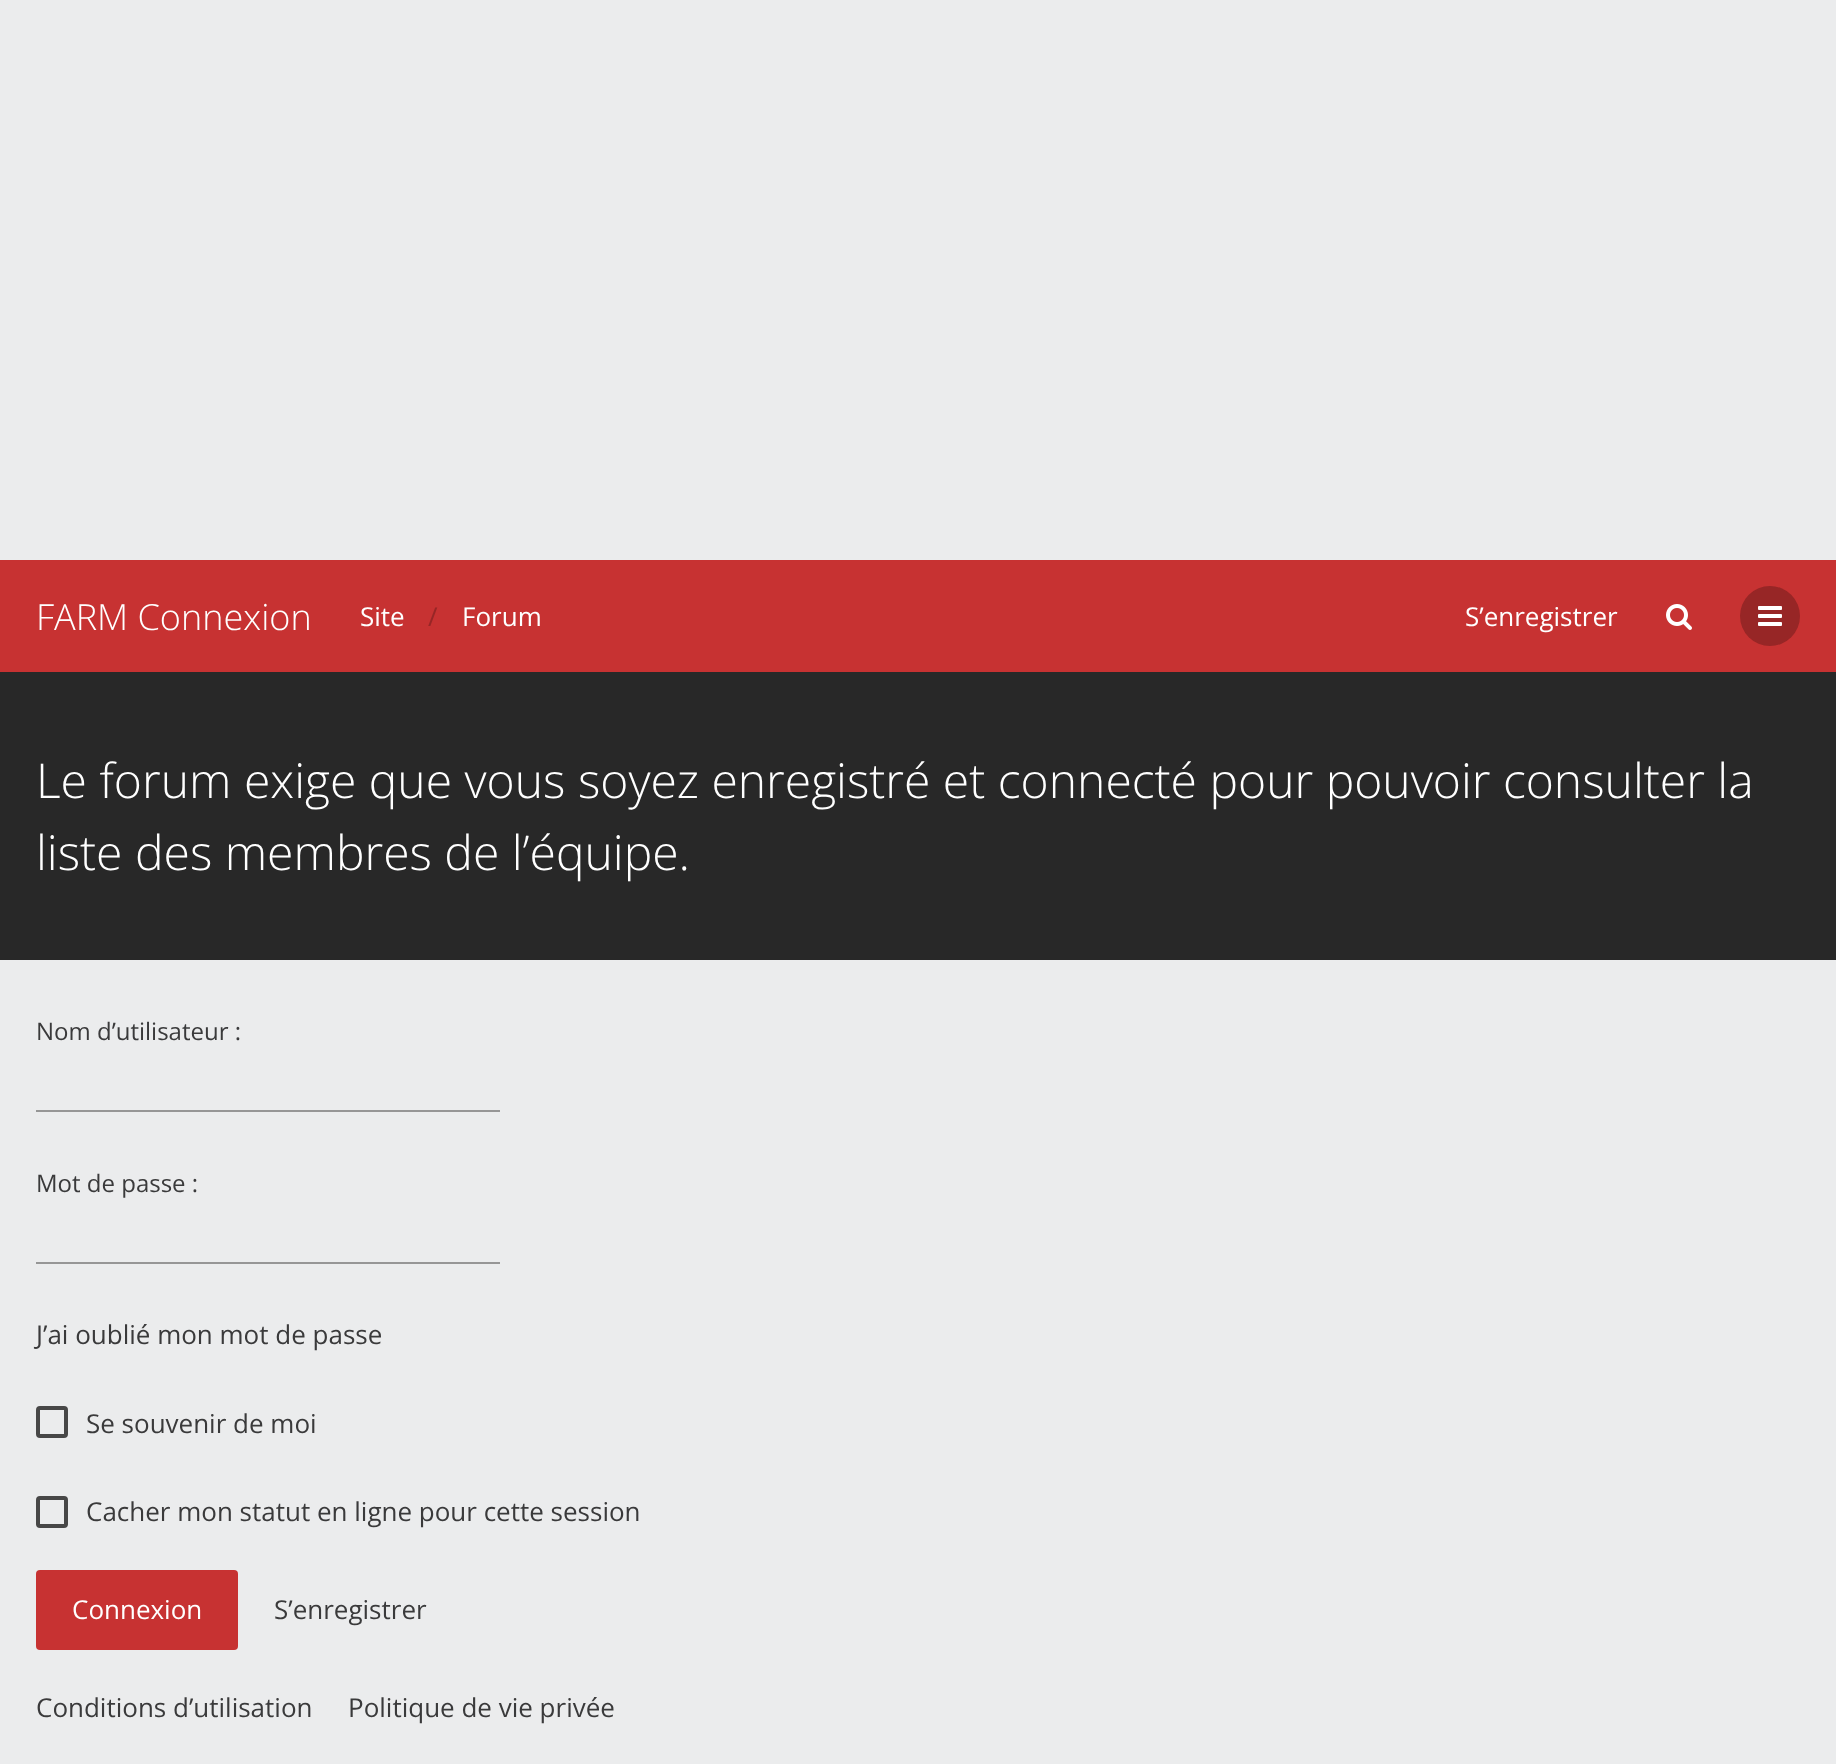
<svg xmlns="http://www.w3.org/2000/svg" width="1836" height="1764">
	<rect width="100%" height="100%" fill="#EBECED" />
	<rect x="0" y="560" width="1836" height="112" fill="#C73232" />
	<text x="36" y="630" font-family="Open Sans" font-size="36" font-weight="300" fill="#FFFFFF">FARM Connexion</text>
	<text x="360" y="626" font-family="Open Sans" font-size="26" fill="#FFFFFF">Site</text>
	<text x="428" y="626" font-family="Open Sans" font-size="26" fill="#972626">/</text>
	<g font-family="Open Sans" font-size="26" fill="#FFFFFF">
		<text x="462" y="626">Forum</text>
		<text x="1465" y="626">S’enregistrer</text>
	</g>
	<image x="1666" y="604" width="26" height="26" href="assets/img1.png" />
	<circle cx="1770" cy="616" r="30" fill="#972626" />
	<image x="1758" y="606" width="24" height="20" href="assets/img2.png" />
	<rect x="0" y="672" width="1836" height="288" fill="#282828" />
	<g font-family="Open Sans" font-size="48" font-weight="300" fill="#FFFFFF">
		<text x="36" y="798">Le forum exige que vous soyez enregistré et connecté pour pouvoir consulter la</text>
		<text x="36" y="870">liste des membres de l’équipe.</text>
	</g>
	<text x="36" y="1040" font-family="Open Sans" font-size="24" fill="#3A3A3B">Nom d’utilisateur :</text>
	<rect x="36" y="1110" width="464" height="2" fill="#969696" />
	<text x="36" y="1192" font-family="Open Sans" font-size="24" fill="#3A3A3B">Mot de passe :</text>
	<rect x="36" y="1262" width="464" height="2" fill="#969696" />
	<text x="36" y="1344" font-family="Open Sans" font-size="26" fill="#3A3A3B">J’ai oublié mon mot de passe</text>
	<rect x="38" y="1408" width="28" height="28" rx="2" fill="none" stroke="#474747" stroke-width="4" />
	<text x="86" y="1433" font-family="Open Sans" font-size="26" fill="#3A3A3B">Se souvenir de moi</text>
	<rect x="38" y="1498" width="28" height="28" rx="2" fill="none" stroke="#474747" stroke-width="4" />
	<text x="86" y="1521" font-family="Open Sans" font-size="26" fill="#3A3A3B">Cacher mon statut en ligne pour cette session</text>
	<rect x="36" y="1570" width="202" height="80" rx="4" fill="#C73232" />
	<text x="72" y="1619" font-family="Open Sans" font-size="26" fill="#FFFFFF">Connexion</text>
	<g font-family="Open Sans" font-size="26" fill="#3A3A3B">
		<text x="274" y="1619">S’enregistrer</text>
		<text x="36" y="1717">Conditions d’utilisation</text>
		<text x="348" y="1717">Politique de vie privée</text>
	</g>
</svg>
